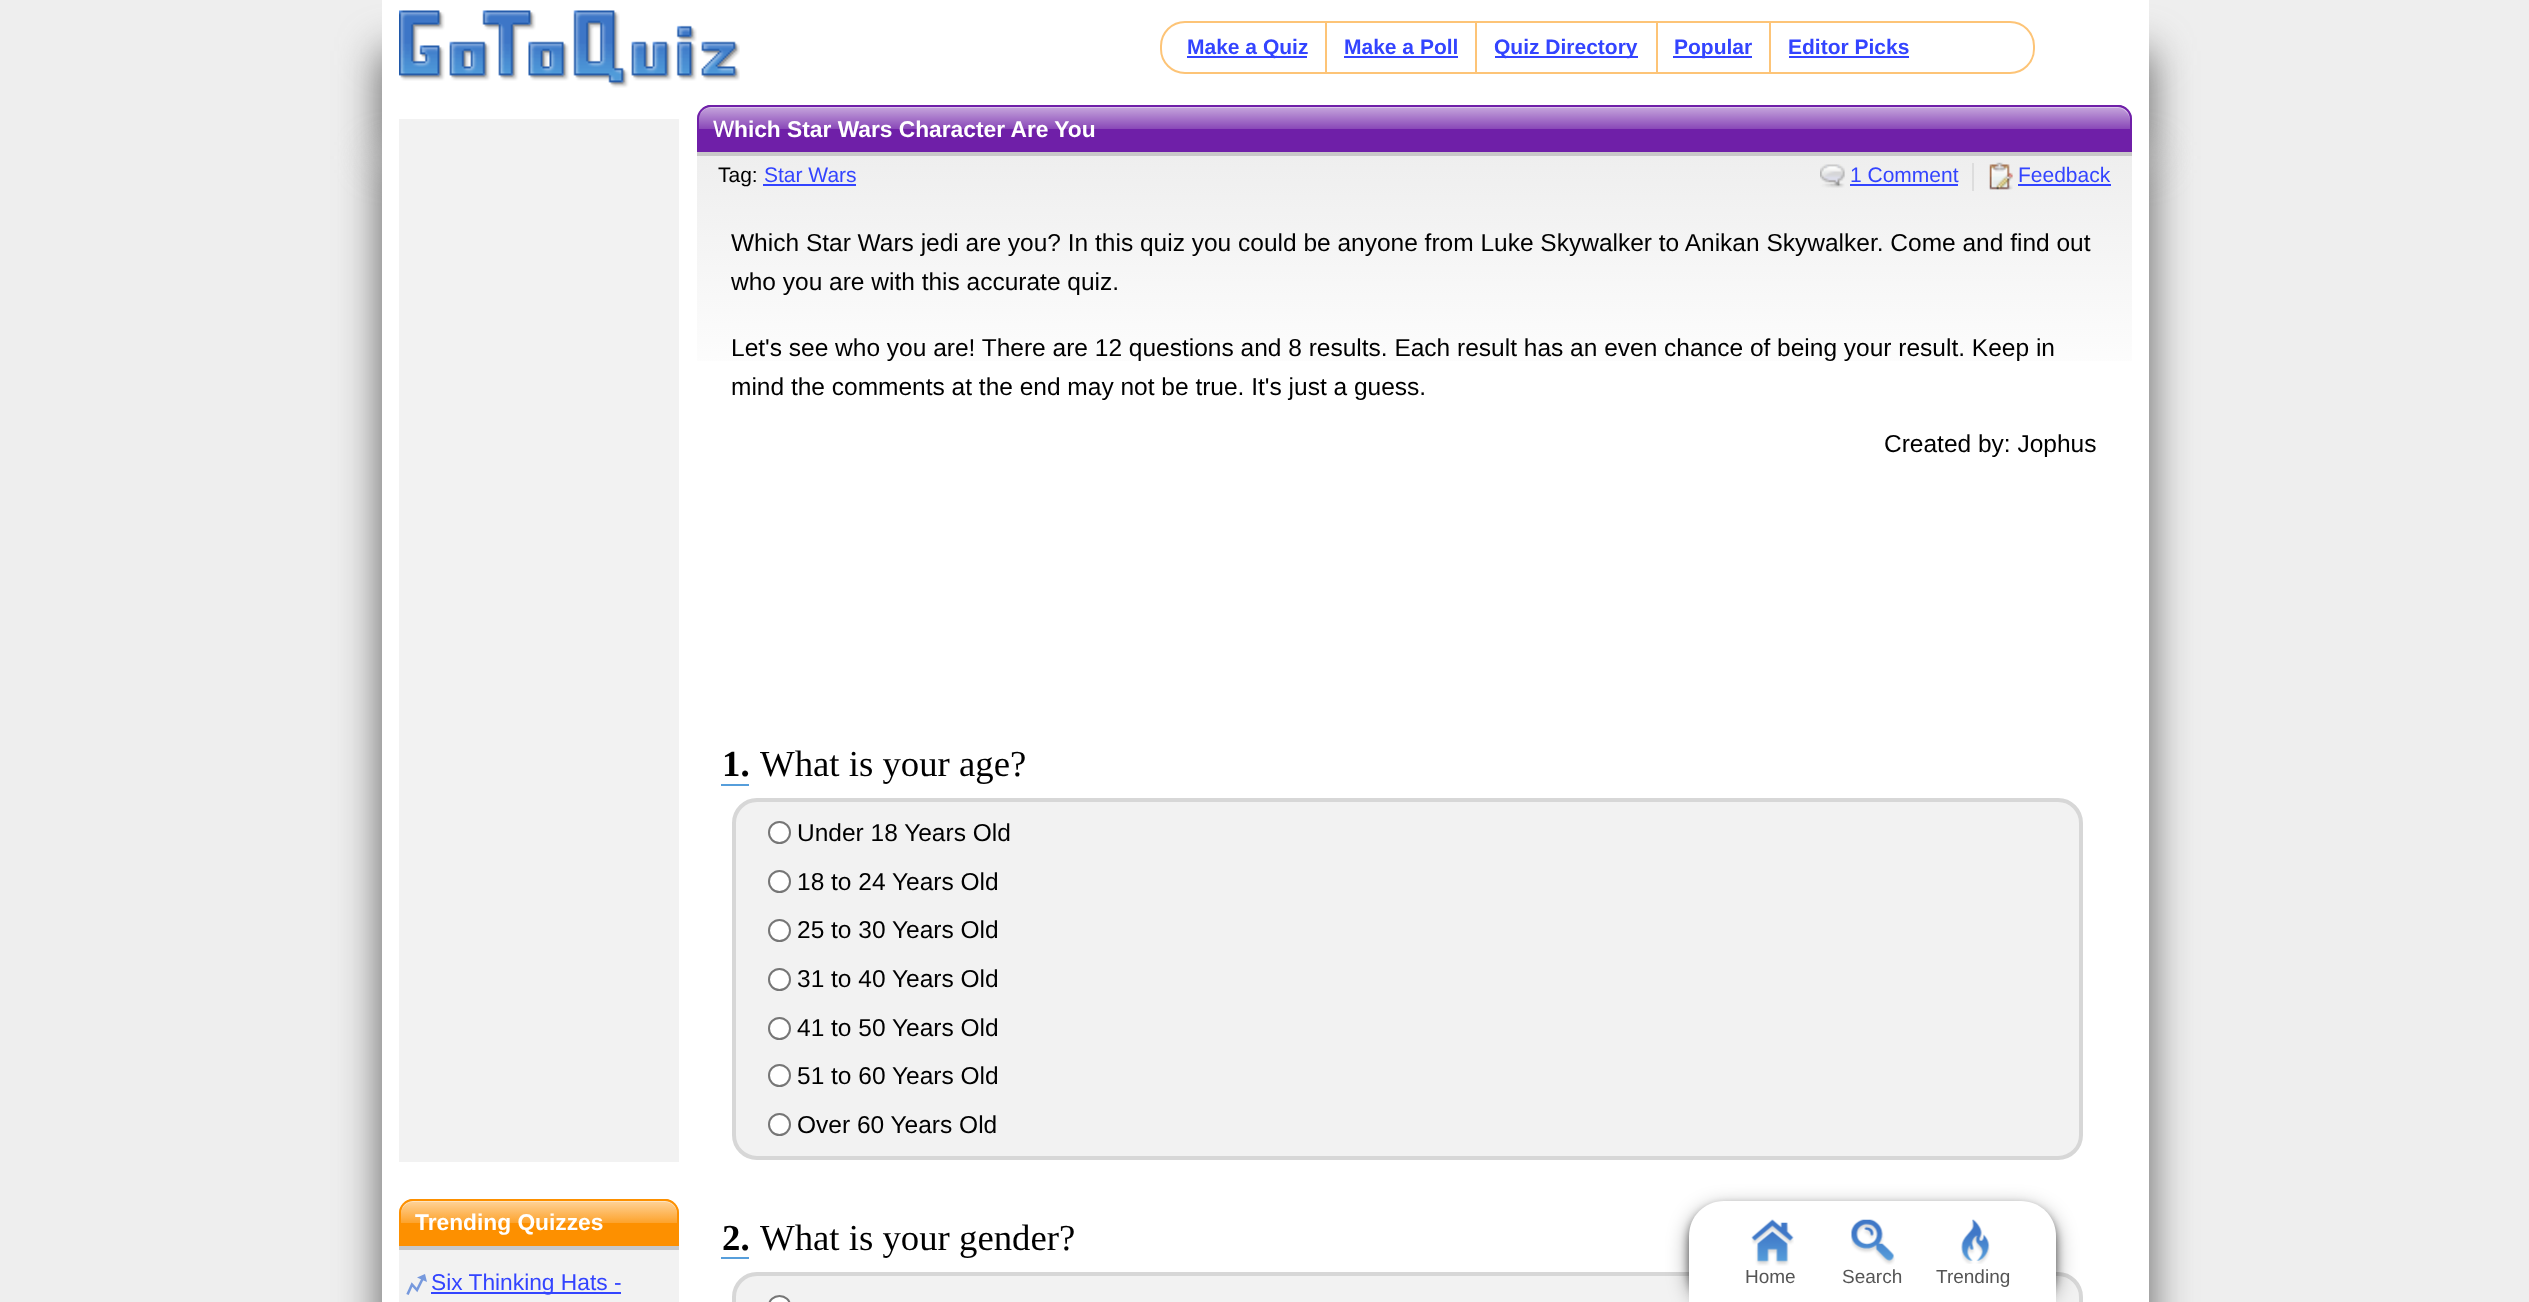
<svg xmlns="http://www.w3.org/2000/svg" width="2529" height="1302">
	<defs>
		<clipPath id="clip1"><path d="M413 1199H665C672.5 1199 679 1205.5 679 1213V1246H399V1213C399 1205.5 405.5 1199 413 1199Z" /></clipPath>
		<linearGradient id="g1" gradientUnits="userSpaceOnUse" x1="539" y1="1244" x2="539" y2="1201"><stop offset="0.5" stop-color="#FFFFFF" stop-opacity="0" /><stop offset="0.5" stop-color="#FFFFFF" stop-opacity="0.18" /><stop offset="1" stop-color="#FFFFFF" stop-opacity="0.6" /></linearGradient>
		<linearGradient id="g2" gradientUnits="userSpaceOnUse" x1="1414" y1="105" x2="1414" y2="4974"><stop offset="0" stop-color="#FFFFFF" /><stop offset="0.01" stop-color="#EEEEEE" /><stop offset="0.06" stop-color="#FFFFFF" /></linearGradient>
		<clipPath id="clip2"><path d="M711 105H2118C2125.5 105 2132 111.5 2132 119V152H697V119C697 111.5 703.5 105 711 105Z" /></clipPath>
		<linearGradient id="g3" gradientUnits="userSpaceOnUse" x1="1414" y1="151" x2="1414" y2="107"><stop offset="0.5" stop-color="#FFFFFF" stop-opacity="0" /><stop offset="0.5" stop-color="#FFFFFF" stop-opacity="0.18" /><stop offset="1" stop-color="#FFFFFF" stop-opacity="0.6" /></linearGradient>
	</defs>
	<rect width="100%" height="100%" fill="#EEEEEE" />
	<rect x="380" y="51" width="1771" height="108" fill="#666666" filter="blur(21px)" />
	<rect x="382" y="0" width="1767" height="105" fill="#FFFFFF" />
	<image x="399" y="10" width="341" height="78" href="assets/img1.png" />
	<rect x="1161" y="22" width="873" height="51" rx="24" fill="none" stroke="#FDC477" stroke-width="2" />
	<rect x="1325" y="23" width="2" height="49" fill="#FDC477" />
	<rect x="1187" y="56" width="120" height="2" fill="#3344FF" />
	<text x="1187" y="54" font-family="Liberation Sans" font-size="21" font-weight="700" fill="#3344FF">Make a Quiz</text>
	<rect x="1475" y="23" width="2" height="49" fill="#FDC477" />
	<text x="1344" y="54" font-family="Liberation Sans" font-size="21" font-weight="700" fill="#3344FF">Make a Poll</text>
	<rect x="1344" y="56" width="114" height="2" fill="#3344FF" />
	<rect x="1656" y="23" width="2" height="49" fill="#FDC477" />
	<rect x="1495" y="56" width="143" height="2" fill="#3344FF" />
	<text x="1494" y="54" font-family="Liberation Sans" font-size="21" font-weight="700" fill="#3344FF">Quiz Directory</text>
	<rect x="1769" y="23" width="2" height="49" fill="#FDC477" />
	<rect x="1673" y="56" width="79" height="2" fill="#3344FF" />
	<g font-family="Liberation Sans" font-size="21" font-weight="700" fill="#3344FF">
		<text x="1674" y="54">Popular</text>
		<text x="1788" y="54">Editor Picks</text>
	</g>
	<rect x="1789" y="56" width="120" height="2" fill="#3344FF" />
	<rect x="380" y="156" width="1771" height="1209" fill="#666666" filter="blur(21px)" />
	<rect x="382" y="105" width="1767" height="1197" fill="#FFFFFF" />
	<rect x="399" y="119" width="280" height="1043" fill="#F2F2F2" />
	<rect x="399" y="1250" width="280" height="52" fill="#F2F2F2" />
	<rect x="399" y="1246" width="280" height="4" fill="#C8C8C8" />
	<path d="M413 1199H665C672.5 1199 679 1205.5 679 1213V1246H399V1213C399 1205.5 405.5 1199 413 1199Z" fill="#FD9000" />
	<g clip-path="url(#clip1)">
		<rect x="399" y="1201" width="280" height="22" fill="url(#g1)" />
	</g>
	<path d="M413 1202H665C672 1202 677 1208 677 1214V1213C677 1206 672 1201 665 1201H413C406 1201 401 1206 401 1213V1214C401 1208 406 1202 413 1202Z" fill="#FFFFFF" fill-opacity="0.4" />
	<path d="M413 1200H665C672 1200 678 1206 678 1213V1245H400V1213C400 1206 406 1200 413 1200Z" fill="none" stroke="#FD9000" stroke-width="2" />
	<text x="415" y="1230" font-family="Liberation Sans" font-size="22.75" font-weight="700" fill="#FFFFFF">Trending Quizzes</text>
	<path d="M425 1274L417 1277.5L427 1282Z" fill="#7799DD" />
	<path d="M407.5 1294.5L412 1284.5L417 1290L423 1278" fill="none" stroke="#7799DD" stroke-width="2.6" />
	<rect x="431" y="1292" width="190" height="2" fill="#3344FF" />
	<text x="431" y="1290" font-family="Liberation Sans" font-size="22.75" fill="#3344FF">Six Thinking Hats -</text>
	<rect x="697" y="112" width="1435" height="249" fill="url(#g2)" />
	<path d="M697 152V156H2132V123V119V152Z" fill="#C8C8C8" />
	<path d="M711 105H2118C2125.5 105 2132 111.5 2132 119V152H697V119C697 111.5 703.5 105 711 105Z" fill="#6F1FA8" />
	<g clip-path="url(#clip2)">
		<rect x="697" y="107" width="1435" height="22" fill="url(#g3)" />
	</g>
	<path d="M710 108H2118C2124 108 2130 114 2130 121C2130 114 2126 107 2118 107H710C702 107 698 114 698 121C698 114 704 108 710 108Z" fill="#FFFFFF" fill-opacity="0.4" />
	<path d="M711 106H2118C2125 106 2131 112 2131 119V151H698V119C698 112 704 106 711 106Z" fill="none" stroke="#6F1FA8" stroke-width="2" />
	<text x="713" y="137" font-family="Noto Sans" font-size="22.75" font-weight="500" fill="#FFFFFF">W</text>
	<text x="734" y="137" font-family="Liberation Sans" font-size="22.75" font-weight="700" fill="#FFFFFF">hich Star Wars Character Are You</text>
	<text x="718" y="182" font-family="Liberation Sans" font-size="21" fill="#000000">Tag:</text>
	<text x="764" y="182" font-family="Liberation Sans" font-size="21" fill="#3344FF">Star Wars</text>
	<rect x="763" y="184" width="93" height="2" fill="#3344FF" />
	<rect x="1972" y="163" width="2" height="28" fill="#DDDDDD" />
	<image x="1820" y="164" width="25" height="24" href="assets/img2.png" />
	<text x="1850" y="182" font-family="Liberation Sans" font-size="21" fill="#3344FF">1 Comment</text>
	<rect x="1850" y="184" width="108" height="2" fill="#3344FF" />
	<image x="1989" y="162" width="24" height="28" href="assets/img3.png" />
	<text x="2018" y="182" font-family="Liberation Sans" font-size="21" fill="#3344FF">Feedback</text>
	<rect x="2018" y="184" width="93" height="2" fill="#3344FF" />
	<g font-family="Liberation Sans" font-size="24.5" fill="#000000">
		<text x="731" y="251">Which Star Wars jedi are you? In this quiz you could be anyone from Luke Skywalker to Anikan Skywalker. Come and find out</text>
		<text x="731" y="290">who you are with this accurate quiz.</text>
		<text x="731" y="356">Let's see who you are! There are 12 questions and 8 results. Each result has an even chance of being your result. Keep in</text>
		<text x="731" y="395">mind the comments at the end may not be true. It's just a guess.</text>
		<text x="1884" y="452">Created by: Jophus</text>
	</g>
	<rect x="721" y="784" width="28" height="2" fill="#569EDB" />
	<text x="722" y="776" font-family="Liberation Serif" font-size="36.75" font-weight="700" fill="#000000">1.</text>
	<text x="760" y="776" font-family="Liberation Serif" font-size="36.75" fill="#000000">What is your age?</text>
	<rect x="734" y="800" width="1347" height="358" rx="23" fill="#F2F2F2" stroke="#D7D7D7" stroke-width="4" />
	<circle cx="779.5" cy="832.5" r="10.5" fill="#FFFFFF" stroke="#767676" stroke-width="2" />
	<text x="797" y="841" font-family="Liberation Sans" font-size="24.5" fill="#000000">Under 18 Years Old</text>
	<circle cx="779.5" cy="881.5" r="10.5" fill="#FFFFFF" stroke="#767676" stroke-width="2" />
	<text x="797" y="890" font-family="Liberation Sans" font-size="24.5" fill="#000000">18 to 24 Years Old</text>
	<circle cx="779.5" cy="930.5" r="10.5" fill="#FFFFFF" stroke="#767676" stroke-width="2" />
	<text x="797" y="938" font-family="Liberation Sans" font-size="24.5" fill="#000000">25 to 30 Years Old</text>
	<circle cx="779.5" cy="979.5" r="10.5" fill="#FFFFFF" stroke="#767676" stroke-width="2" />
	<text x="797" y="987" font-family="Liberation Sans" font-size="24.5" fill="#000000">31 to 40 Years Old</text>
	<circle cx="779.5" cy="1028.5" r="10.5" fill="#FFFFFF" stroke="#767676" stroke-width="2" />
	<text x="797" y="1036" font-family="Liberation Sans" font-size="24.5" fill="#000000">41 to 50 Years Old</text>
	<circle cx="779.5" cy="1075.5" r="10.5" fill="#FFFFFF" stroke="#767676" stroke-width="2" />
	<text x="797" y="1084" font-family="Liberation Sans" font-size="24.5" fill="#000000">51 to 60 Years Old</text>
	<circle cx="779.5" cy="1124.5" r="10.5" fill="#FFFFFF" stroke="#767676" stroke-width="2" />
	<text x="797" y="1133" font-family="Liberation Sans" font-size="24.5" fill="#000000">Over 60 Years Old</text>
	<rect x="721" y="1257" width="28" height="2" fill="#569EDB" />
	<text x="722" y="1250" font-family="Liberation Serif" font-size="36.75" font-weight="700" fill="#000000">2.</text>
	<text x="760" y="1250" font-family="Liberation Serif" font-size="36.75" fill="#000000">What is your gender?</text>
	<rect x="734" y="1274" width="1347" height="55" rx="23" fill="#F2F2F2" stroke="#D7D7D7" stroke-width="4" />
	<rect x="769" y="1296" width="21" height="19" rx="10.5" fill="#FFFFFF" stroke="#767676" stroke-width="2" />
	<rect x="1689" y="1206" width="367" height="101" rx="35" fill="#000000" fill-opacity="0.54" filter="blur(4.5px)" />
	<rect x="1689" y="1208" width="367" height="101" rx="35" fill="#000000" fill-opacity="0.41" filter="blur(10.5px)" />
	<path d="M1724 1201H2021C2040.5 1201 2056 1216.5 2056 1236V1302H1689V1236C1689 1216.5 1704.5 1201 1724 1201Z" fill="#FFFFFF" />
	<image x="1751" y="1219" width="43" height="47" href="assets/img4.png" />
	<text x="1745" y="1283" font-family="Liberation Sans" font-size="19" fill="#555555">Home</text>
	<image x="1851" y="1219" width="44" height="46" href="assets/img5.png" />
	<text x="1842" y="1283" font-family="Liberation Sans" font-size="19" fill="#555555">Search</text>
	<image x="1961" y="1219" width="29" height="45" href="assets/img6.png" />
	<text x="1936" y="1283" font-family="Liberation Sans" font-size="19" fill="#555555">Trending</text>
</svg>
